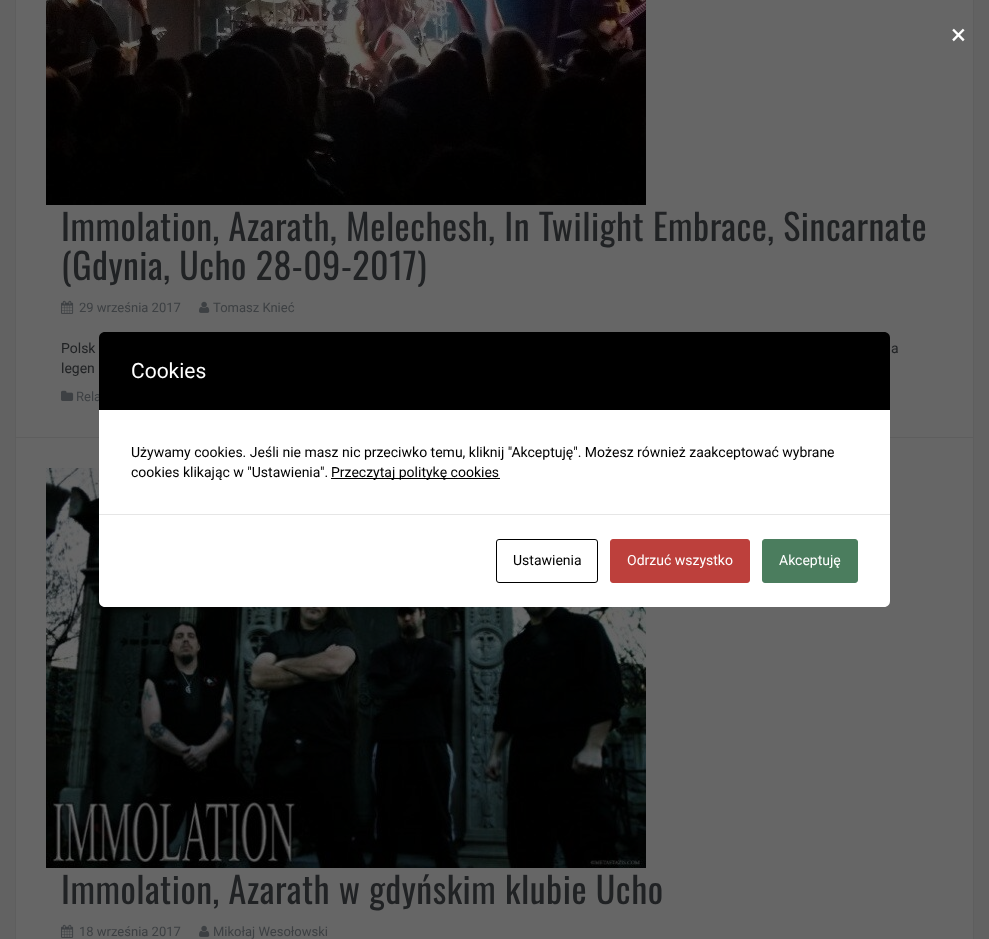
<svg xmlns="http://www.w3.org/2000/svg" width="989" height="939">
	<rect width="100%" height="100%" fill="#626262" />
	<rect x="16" y="0" width="957" height="437" fill="#666666" />
	<text x="951" y="44" font-family="Roboto" font-size="28" fill="#FFFFFF">×</text>
	<text x="76" y="401" font-family="Roboto" font-size="13" fill="#3D4043">Rela</text>
	<path d="M105 332H884C887.5 332 890 334.5 890 338V410H99V338C99 334.5 101.5 332 105 332Z" fill="#000000" />
	<text x="131" y="378" font-family="Roboto" font-size="21" fill="#FFFFFF">Cookies</text>
	<rect x="973" y="0" width="1" height="939" fill="#5E5E5E" />
	<rect x="15" y="437" width="959" height="1" fill="#5E5E5E" />
	<rect x="16" y="438" width="957" height="501" fill="#666666" />
	<image x="46" y="468" width="600" height="400" href="assets/img5.png" />
	<rect x="99" y="410" width="791" height="104" fill="#FFFFFF" />
	<g font-family="Roboto" font-size="14" fill="#000000">
		<text x="131" y="457">Używamy cookies. Jeśli nie masz nic przeciwko temu, kliknij "Akceptuję". Możesz również zaakceptować wybrane</text>
		<text x="131" y="477">cookies klikając w "Ustawienia".</text>
	</g>
	<rect x="331" y="478" width="169" height="1" fill="#000000" />
	<text x="331" y="477" font-family="Roboto" font-size="14" fill="#000000">Przeczytaj politykę cookies</text>
	<path d="M99 514H890V601C890 604.5 887.5 607 884 607H105C101.5 607 99 604.5 99 601Z" fill="#FFFFFF" />
	<rect x="99" y="514" width="791" height="1" fill="#E6E6E6" />
	<rect x="496.5" y="539.5" width="101" height="43" rx="2.5" fill="none" stroke="#000000" />
	<text x="513" y="565" font-family="Roboto" font-size="14" fill="#000000">Ustawienia</text>
	<rect x="610.5" y="539.5" width="139" height="43" rx="2.5" fill="#BD403C" stroke="#BD403C" />
	<text x="627" y="565" font-family="Roboto" font-size="14" fill="#FFFFFF">Odrzuć wszystko</text>
	<rect x="762.5" y="539.5" width="95" height="43" rx="2.5" fill="#4B7D5E" stroke="#4B7D5E" />
	<text x="779" y="565" font-family="Roboto" font-size="14" fill="#FFFFFF">Akceptuję</text>
	<rect x="15" y="0" width="1" height="939" fill="#5E5E5E" />
	<image x="46" y="0" width="600" height="205" href="assets/img1.png" />
	<g font-family="Oswald" font-size="36" letter-spacing="0.5" fill="#202224">
		<text x="61" y="241">Immolation, Azarath, Melechesh, In Twilight Embrace, Sincarnate</text>
		<text x="61" y="280">(Gdynia, Ucho 28-09-2017)</text>
	</g>
	<image x="61" y="300" width="13" height="14" href="assets/img2.png" />
	<text x="79" y="312" font-family="Roboto" font-size="13" fill="#3D4043">29 września 2017</text>
	<image x="199" y="301" width="11" height="12" href="assets/img3.png" />
	<text x="213" y="312" font-family="Roboto" font-size="13" fill="#3D4043">Tomasz Knieć</text>
	<g font-family="Roboto" font-size="14" fill="#202224">
		<text x="61" y="353">Polsk</text>
		<text x="891" y="353">a</text>
		<text x="61" y="373">legen</text>
	</g>
	<image x="61" y="390" width="13" height="11" href="assets/img4.png" />
	<text x="61" y="904" font-family="Oswald" font-size="36" letter-spacing="0.5" fill="#202224">Immolation, Azarath w gdyńskim klubie Ucho</text>
	<image x="61" y="924" width="13" height="14" href="assets/img2.png" />
	<text x="79" y="936" font-family="Roboto" font-size="13" fill="#3D4043">18 września 2017</text>
	<image x="199" y="925" width="11" height="12" href="assets/img3.png" />
	<text x="213" y="936" font-family="Roboto" font-size="13" fill="#3D4043">Mikołaj Wesołowski</text>
</svg>
